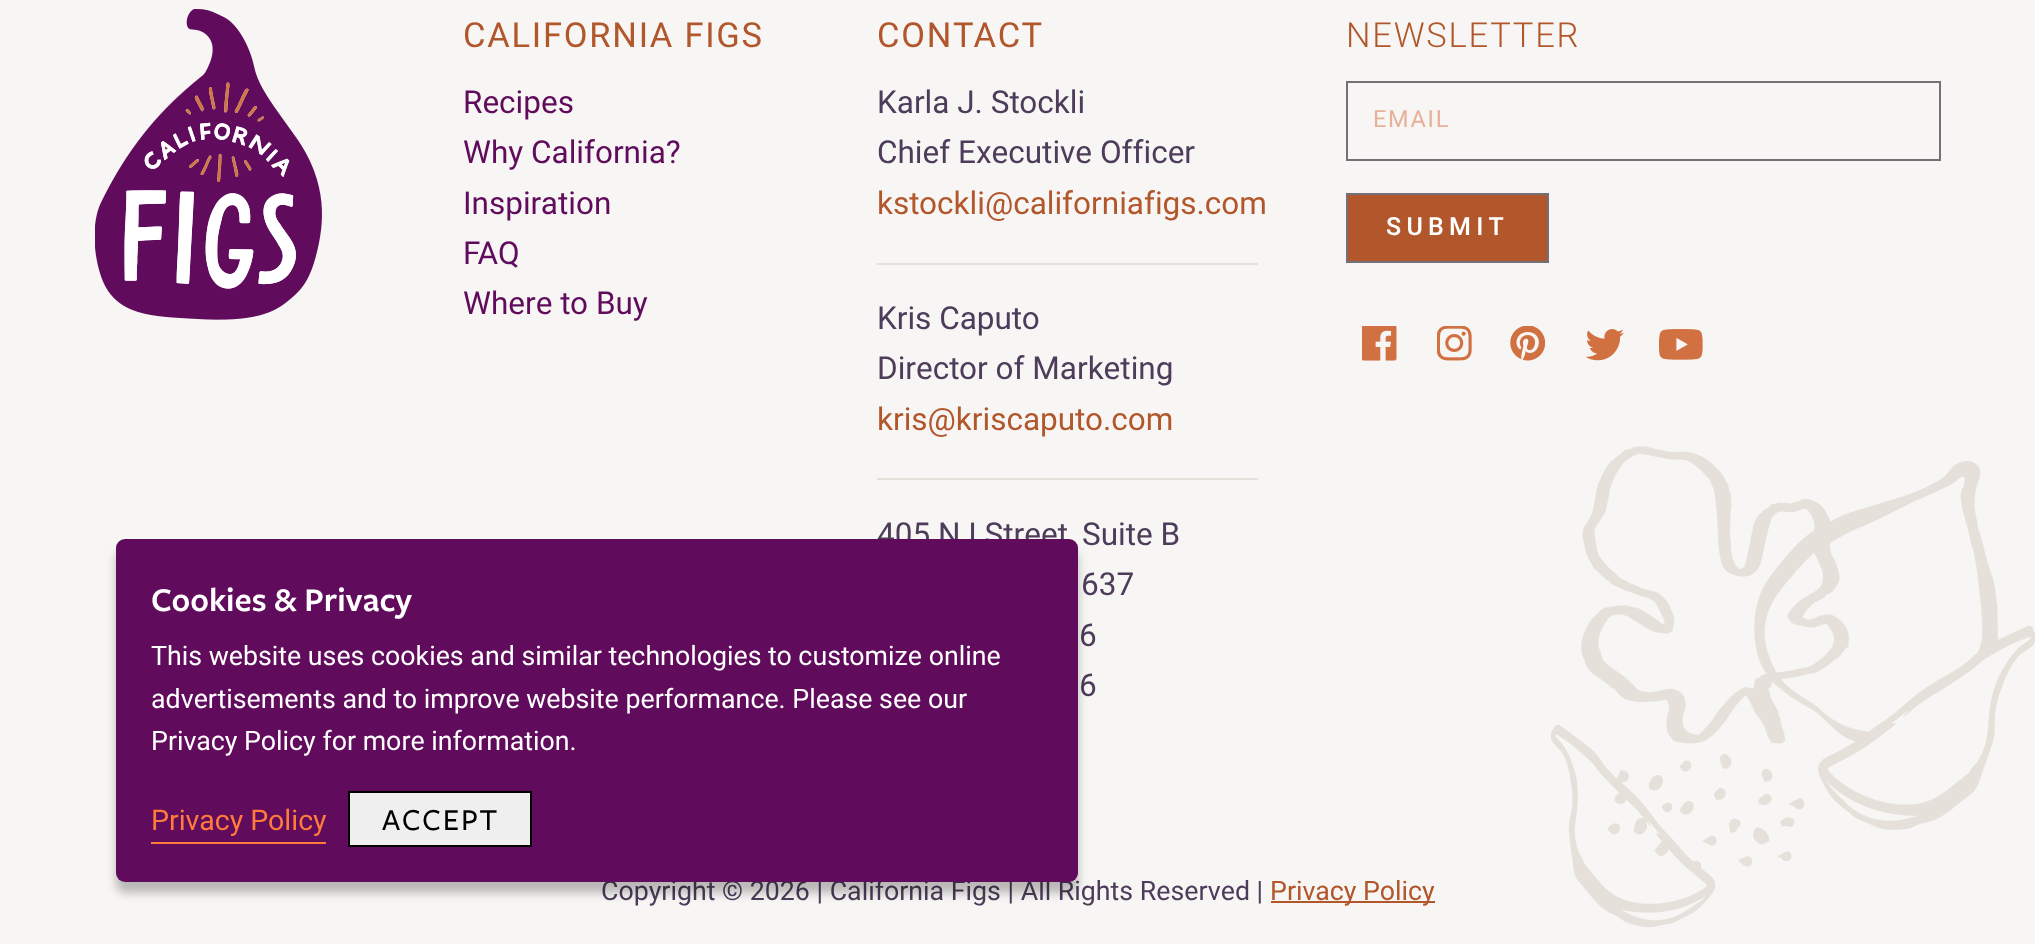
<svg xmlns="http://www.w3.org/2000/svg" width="2035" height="944">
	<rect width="100%" height="100%" fill="#F7F6F4" />
	<image x="95" y="9" width="227" height="311" href="assets/img1.png" />
	<text x="463" y="47" font-family="Heebo" font-size="34.5" letter-spacing="1.75" fill="#B1572B">CALIFORNIA FIGS</text>
	<g font-family="Heebo" font-size="31.5" fill="#600B5C">
		<text x="463" y="113">Recipes</text>
		<text x="463" y="163">Why California?</text>
		<text x="463" y="214">Inspiration</text>
		<text x="463" y="264">FAQ</text>
		<text x="463" y="314">Where to Buy</text>
	</g>
	<text x="877" y="47" font-family="Heebo" font-size="34.5" letter-spacing="1.75" fill="#B1572B">CONTACT</text>
	<g font-family="Heebo" font-size="31.5" fill="#4D3C5A">
		<text x="877" y="113">Karla J. Stockli</text>
		<text x="877" y="163">Chief Executive Officer</text>
	</g>
	<text x="877" y="214" font-family="Heebo" font-size="31.5" fill="#B1572B">kstockli@californiafigs.com</text>
	<rect x="877" y="263" width="381" height="2" fill="#E5E1DA" />
	<g font-family="Heebo" font-size="31.5" fill="#4D3C5A">
		<text x="877" y="329">Kris Caputo</text>
		<text x="877" y="379">Director of Marketing</text>
	</g>
	<text x="877" y="430" font-family="Heebo" font-size="31.5" fill="#B1572B">kris@kriscaputo.com</text>
	<rect x="877" y="478" width="381" height="2" fill="#E5E1DA" />
	<g font-family="Heebo" font-size="31.5" fill="#4D3C5A">
		<text x="877" y="545">405 N I Street, Suite B</text>
		<text x="1081" y="595">637</text>
		<text x="1079" y="646">6</text>
		<text x="1079" y="696">6</text>
	</g>
	<text x="1346" y="47" font-family="Heebo" font-size="34.5" font-weight="300" letter-spacing="1.75" fill="#B1572B">NEWSLETTER</text>
	<rect x="1347" y="82" width="593" height="78" fill="none" stroke="#737176" stroke-width="2" />
	<text x="1373" y="127" font-family="Heebo" font-size="23.5" letter-spacing="1.75" fill="#E6B197">EMAIL</text>
	<rect x="1347" y="194" width="201" height="68" fill="#B1572B" stroke="#737176" stroke-width="2" />
	<text x="1386" y="235" font-family="Heebo" font-size="25" font-weight="500" letter-spacing="5.25" fill="#FFFFFF">SUBMIT</text>
	<image x="1362" y="326" width="35" height="35" href="assets/img2.png" />
	<image x="1437" y="326" width="35" height="35" href="assets/img3.png" />
	<image x="1510" y="326" width="35" height="35" href="assets/img4.png" />
	<image x="1586" y="329" width="38" height="32" href="assets/img5.png" />
	<image x="1659" y="329" width="44" height="31" href="assets/img6.png" />
	<image x="1551" y="446" width="484" height="482" href="assets/img7.png" />
	<text x="601" y="900" font-family="Heebo" font-size="26.75" fill="#4D3C5A">Copyright © 2026 | California Figs | All Rights Reserved |</text>
	<rect x="1271" y="901" width="164" height="2" fill="#B1572B" />
	<text x="1270" y="900" font-family="Heebo" font-size="26.75" fill="#B1572B">Privacy Policy</text>
	<rect x="116" y="550" width="962" height="343" rx="9" fill="#000000" fill-opacity="0.25" filter="blur(5px)" />
	<rect x="116" y="539" width="962" height="343" rx="9" fill="#600B5C" />
	<text x="151" y="611" font-family="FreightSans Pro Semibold" font-size="34.5" font-weight="600" fill="#FFFFFF">Cookies &amp; Privacy</text>
	<g font-family="Heebo" font-size="26.75" fill="#FFFFFF">
		<text x="151" y="665">This website uses cookies and similar technologies to customize online</text>
		<text x="151" y="708">advertisements and to improve website performance. Please see our</text>
		<text x="151" y="750">Privacy Policy for more information.</text>
	</g>
	<text x="151" y="830" font-family="Heebo" font-size="28.5" fill="#FF7B3B">Privacy Policy</text>
	<rect x="151" y="842" width="175" height="2" fill="#FF7B3B" />
	<rect x="349" y="792" width="182" height="54" fill="#EFEFEF" stroke="#000000" stroke-width="2" />
	<text x="382" y="830" font-family="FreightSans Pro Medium" font-size="31.5" font-weight="500" letter-spacing="1.75" fill="#000000">ACCEPT</text>
</svg>
